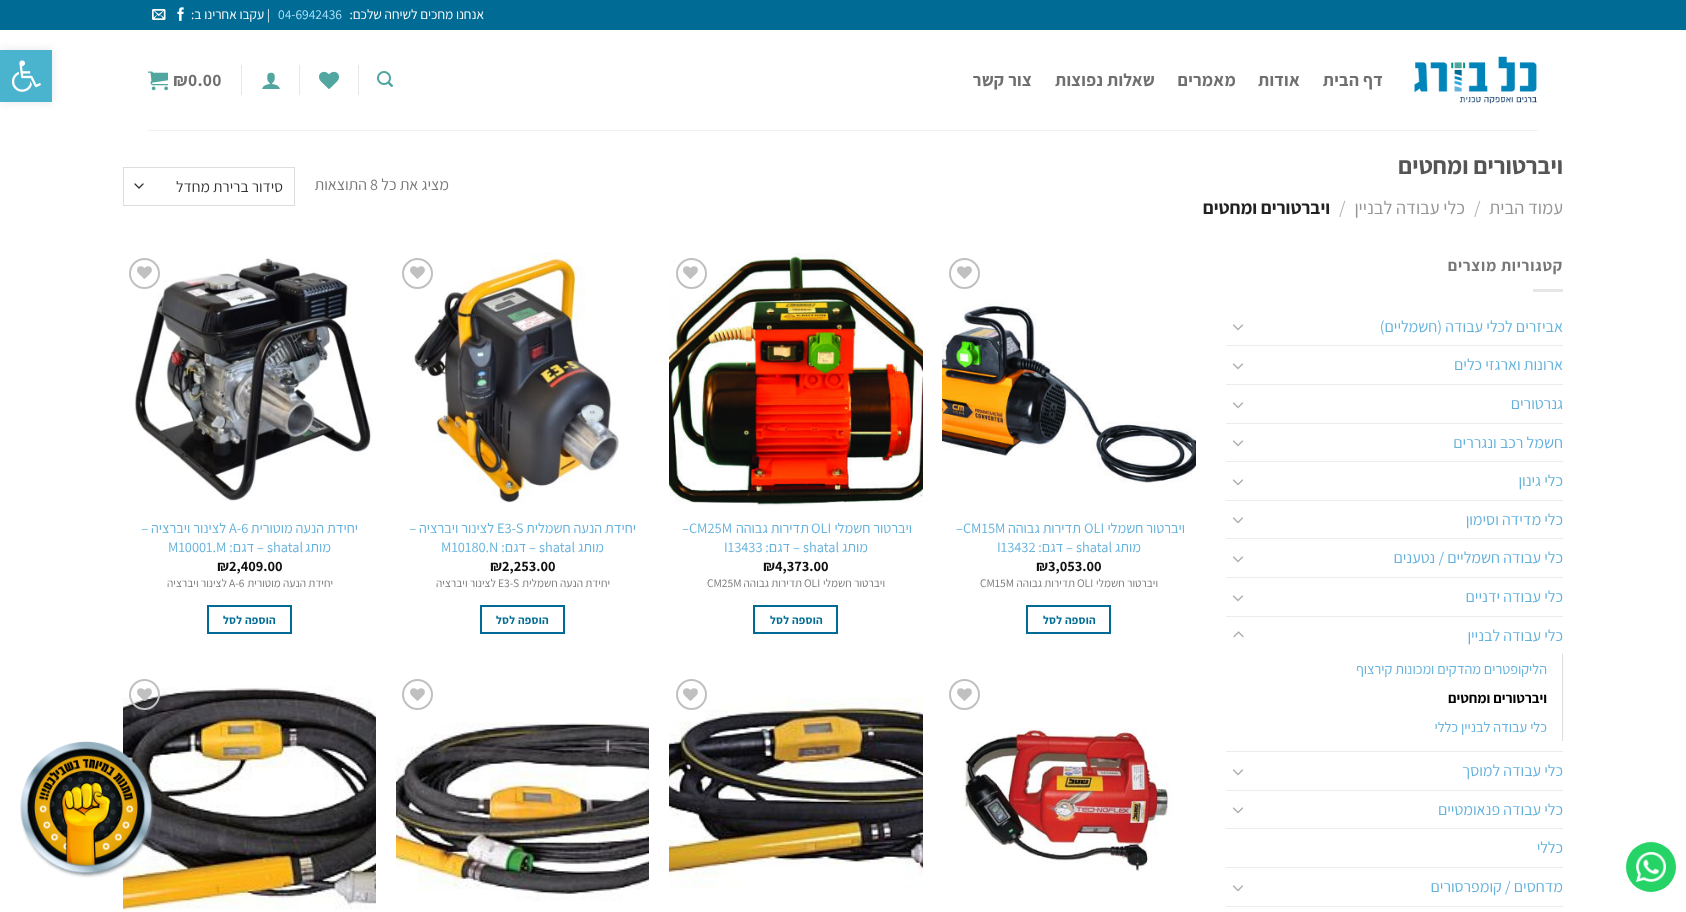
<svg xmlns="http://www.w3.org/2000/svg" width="1686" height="912">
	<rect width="100%" height="100%" fill="#FFFFFF" />
	<rect x="0" y="0" width="1686" height="30" fill="#006B94" />
	<text x="484" y="19" font-family="Assistant" font-size="13.5" direction="rtl" fill="#FFFFFF">אנחנו מחכים לשיחה שלכם:</text>
	<text x="278" y="19" font-family="Assistant" font-size="13.5" fill="#ACE5FF">04-6942436</text>
	<text x="270" y="19" font-family="Assistant" font-size="13.5" direction="rtl" fill="#FFFFFF">| עקבו אחרינו ב:</text>
	<image x="177" y="7" width="7" height="14" href="assets/img1.png" />
	<image x="152" y="9" width="14" height="11" href="assets/img2.png" />
	<image x="1414" y="56" width="123" height="48" href="assets/img3.png" />
	<g font-family="Assistant" font-size="17.5" font-weight="700" letter-spacing="0.3" direction="rtl" fill="#707070">
		<text x="1383" y="86">דף הבית</text>
		<text x="1300" y="86">אודות</text>
		<text x="1236" y="86">מאמרים</text>
		<text x="1155" y="86">שאלות נפוצות</text>
		<text x="1032" y="86">צור קשר</text>
	</g>
	<image x="377" y="71" width="16" height="16" href="assets/img4.png" />
	<rect x="358" y="65" width="1" height="30" fill="#E6E6E6" />
	<image x="319" y="71" width="20" height="18" href="assets/img5.png" />
	<rect x="299" y="65" width="1" height="30" fill="#E6E6E6" />
	<image x="262" y="72" width="18" height="17" href="assets/img6.png" />
	<rect x="241" y="65" width="1" height="30" fill="#E6E6E6" />
	<text x="173" y="86" font-family="Assistant" font-size="17.5" font-weight="700" letter-spacing="0.3" fill="#707070">₪0.00</text>
	<image x="148" y="71" width="20" height="20" href="assets/img7.png" />
	<rect x="148" y="130" width="1390" height="1" fill="#F1F1F1" />
	<text x="1563" y="174" font-family="Assistant" font-size="24" font-weight="700" direction="rtl" fill="#555555">ויברטורים ומחטים</text>
	<text x="1563" y="214" font-family="Assistant" font-size="18.5" direction="rtl" fill="#949494">עמוד הבית</text>
	<text x="1474" y="214" font-family="Assistant" font-size="18.5" fill="#B2B2B2">/</text>
	<text x="1465" y="214" font-family="Assistant" font-size="18.5" direction="rtl" fill="#949494">כלי עבודה לבניין</text>
	<text x="1339" y="214" font-family="Assistant" font-size="18.5" fill="#B2B2B2">/</text>
	<text x="1330" y="214" font-family="Assistant" font-size="18.5" font-weight="700" direction="rtl" fill="#222222">ויברטורים ומחטים</text>
	<text x="449" y="190" font-family="Assistant" font-size="16" direction="rtl" fill="#777777">מציג את כל</text>
	<text x="370" y="190" font-family="Assistant" font-size="16" fill="#777777">8</text>
	<text x="367" y="190" font-family="Assistant" font-size="16" direction="rtl" fill="#777777">התוצאות</text>
	<path d="M135 184L139 188L143 184" fill="none" stroke="#333333" stroke-width="1.3" stroke-linecap="round" stroke-linejoin="round" />
	<rect x="123.5" y="167.5" width="171" height="38" fill="none" stroke="#DDDDDD" />
	<text x="283" y="192" font-family="Assistant" font-size="15.5" direction="rtl" fill="#333333">סידור ברירת מחדל</text>
	<text x="1563" y="271" font-family="Assistant" font-size="16" font-weight="700" letter-spacing="0.75" direction="rtl" fill="#777777">קטגוריות מוצרים</text>
	<rect x="1533" y="289" width="30" height="3" fill="#E6E6E6" />
	<text x="1563" y="332" font-family="Assistant" font-size="16" direction="rtl" fill="#63B1DC">אביזרים לכלי עבודה (חשמליים)</text>
	<image x="1232" y="324" width="12" height="7" href="assets/img8.png" />
	<rect x="1226" y="345" width="337" height="1" fill="#ECECEC" />
	<text x="1563" y="370" font-family="Assistant" font-size="16" direction="rtl" fill="#63B1DC">ארונות וארגזי כלים</text>
	<image x="1232" y="363" width="12" height="7" href="assets/img8.png" />
	<rect x="1226" y="384" width="337" height="1" fill="#ECECEC" />
	<text x="1563" y="409" font-family="Assistant" font-size="16" direction="rtl" fill="#63B1DC">גנרטורים</text>
	<image x="1232" y="402" width="12" height="7" href="assets/img8.png" />
	<rect x="1226" y="423" width="337" height="1" fill="#ECECEC" />
	<text x="1563" y="448" font-family="Assistant" font-size="16" direction="rtl" fill="#63B1DC">חשמל רכב ונגררים</text>
	<image x="1232" y="440" width="12" height="7" href="assets/img8.png" />
	<rect x="1226" y="461" width="337" height="1" fill="#ECECEC" />
	<text x="1563" y="486" font-family="Assistant" font-size="16" direction="rtl" fill="#63B1DC">כלי גינון</text>
	<image x="1232" y="479" width="12" height="7" href="assets/img8.png" />
	<rect x="1226" y="500" width="337" height="1" fill="#ECECEC" />
	<text x="1563" y="525" font-family="Assistant" font-size="16" direction="rtl" fill="#63B1DC">כלי מדידה וסימון</text>
	<image x="1232" y="517" width="12" height="7" href="assets/img8.png" />
	<rect x="1226" y="538" width="337" height="1" fill="#ECECEC" />
	<text x="1563" y="563" font-family="Assistant" font-size="16" direction="rtl" fill="#63B1DC">כלי עבודה חשמליים / נטענים</text>
	<image x="1232" y="556" width="12" height="7" href="assets/img8.png" />
	<rect x="1226" y="577" width="337" height="1" fill="#ECECEC" />
	<text x="1563" y="602" font-family="Assistant" font-size="16" direction="rtl" fill="#63B1DC">כלי עבודה ידניים</text>
	<image x="1232" y="595" width="12" height="7" href="assets/img8.png" />
	<rect x="1226" y="616" width="337" height="1" fill="#ECECEC" />
	<text x="1563" y="641" font-family="Assistant" font-size="16" direction="rtl" fill="#63B1DC">כלי עבודה לבניין</text>
	<image x="1233" y="631" width="11" height="7" href="assets/img9.png" />
	<rect x="1562" y="654" width="1" height="87" fill="#DDDDDD" />
	<text x="1547" y="674" font-family="Assistant" font-size="14.4" direction="rtl" fill="#63B1DC">הליקופטרים מהדקים ומכונות קירצוף</text>
	<text x="1547" y="703" font-family="Assistant" font-size="14.4" font-weight="700" direction="rtl" fill="#000000">ויברטורים ומחטים</text>
	<text x="1547" y="732" font-family="Assistant" font-size="14.4" direction="rtl" fill="#63B1DC">כלי עבודה לבניין כללי</text>
	<rect x="1226" y="751" width="337" height="1" fill="#ECECEC" />
	<text x="1563" y="776" font-family="Assistant" font-size="16" direction="rtl" fill="#63B1DC">כלי עבודה למוסך</text>
	<image x="1232" y="769" width="12" height="7" href="assets/img8.png" />
	<rect x="1226" y="790" width="337" height="1" fill="#ECECEC" />
	<text x="1563" y="815" font-family="Assistant" font-size="16" direction="rtl" fill="#63B1DC">כלי עבודה פנאומטיים</text>
	<image x="1232" y="807" width="12" height="7" href="assets/img8.png" />
	<rect x="1226" y="828" width="337" height="1" fill="#ECECEC" />
	<text x="1563" y="853" font-family="Assistant" font-size="16" direction="rtl" fill="#63B1DC">כללי</text>
	<rect x="1226" y="867" width="337" height="1" fill="#ECECEC" />
	<text x="1563" y="892" font-family="Assistant" font-size="16" direction="rtl" fill="#63B1DC">מדחסים / קומפרסורים</text>
	<image x="1232" y="885" width="12" height="7" href="assets/img8.png" />
	<rect x="1226" y="906" width="337" height="1" fill="#ECECEC" />
	<circle cx="964.5" cy="273.5" r="14.5" fill="none" stroke="#C0C0C0" stroke-width="2" />
	<image x="957" y="266" width="15" height="13" href="assets/img10.png" />
	<image x="942" y="300" width="254" height="183" href="assets/img11.png" />
	<text x="1185" y="533" font-family="Assistant" font-size="14.4" direction="rtl" fill="#63B1DC">ויברטור חשמלי</text>
	<text x="1084" y="533" font-family="Assistant" font-size="14.4" fill="#63B1DC">OLI</text>
	<text x="1081" y="533" font-family="Assistant" font-size="14.4" direction="rtl" fill="#63B1DC">תדירות גבוהה</text>
	<text x="956" y="533" font-family="Assistant" font-size="14.4" fill="#63B1DC">–CM15M</text>
	<text x="1141" y="552" font-family="Assistant" font-size="14.4" direction="rtl" fill="#63B1DC">מותג</text>
	<text x="1076" y="552" font-family="Assistant" font-size="14.4" fill="#63B1DC">shatal</text>
	<text x="1073" y="552" font-family="Assistant" font-size="14.4" direction="rtl" fill="#63B1DC">– דגם:</text>
	<text x="997" y="552" font-family="Assistant" font-size="14.4" fill="#63B1DC">I13432</text>
	<text x="1036" y="571" font-family="Assistant" font-size="14.4" font-weight="700" fill="#111111">₪3,053.00</text>
	<text x="1158" y="587" font-family="Assistant" font-size="11.5" direction="rtl" fill="#777777">ויברטור חשמלי</text>
	<text x="1077" y="587" font-family="Assistant" font-size="11.5" fill="#777777">OLI</text>
	<text x="1075" y="587" font-family="Assistant" font-size="11.5" direction="rtl" fill="#777777">תדירות גבוהה</text>
	<text x="980" y="587" font-family="Assistant" font-size="11.5" fill="#777777">CM15M</text>
	<rect x="1027" y="606" width="83" height="27" fill="none" stroke="#006B94" stroke-width="2" />
	<text x="1096" y="624" font-family="Assistant" font-size="11.5" font-weight="700" letter-spacing="0.3" direction="rtl" fill="#006B94">הוספה לסל</text>
	<image x="669" y="253" width="254" height="253" href="assets/img12.png" />
	<circle cx="691.5" cy="273.5" r="14.5" fill="none" stroke="#C0C0C0" stroke-width="2" />
	<image x="683" y="266" width="15" height="13" href="assets/img10.png" />
	<text x="912" y="533" font-family="Assistant" font-size="14.4" direction="rtl" fill="#63B1DC">ויברטור חשמלי</text>
	<text x="811" y="533" font-family="Assistant" font-size="14.4" fill="#63B1DC">OLI</text>
	<text x="809" y="533" font-family="Assistant" font-size="14.4" direction="rtl" fill="#63B1DC">תדירות גבוהה</text>
	<text x="682" y="533" font-family="Assistant" font-size="14.4" fill="#63B1DC">–CM25M</text>
	<text x="868" y="552" font-family="Assistant" font-size="14.4" direction="rtl" fill="#63B1DC">מותג</text>
	<text x="803" y="552" font-family="Assistant" font-size="14.4" fill="#63B1DC">shatal</text>
	<text x="800" y="552" font-family="Assistant" font-size="14.4" direction="rtl" fill="#63B1DC">– דגם:</text>
	<text x="724" y="552" font-family="Assistant" font-size="14.4" fill="#63B1DC">I13433</text>
	<text x="763" y="571" font-family="Assistant" font-size="14.4" font-weight="700" fill="#111111">₪4,373.00</text>
	<text x="885" y="587" font-family="Assistant" font-size="11.5" direction="rtl" fill="#777777">ויברטור חשמלי</text>
	<text x="804" y="587" font-family="Assistant" font-size="11.5" fill="#777777">OLI</text>
	<text x="802" y="587" font-family="Assistant" font-size="11.5" direction="rtl" fill="#777777">תדירות גבוהה</text>
	<text x="707" y="587" font-family="Assistant" font-size="11.5" fill="#777777">CM25M</text>
	<rect x="754" y="606" width="83" height="27" fill="none" stroke="#006B94" stroke-width="2" />
	<text x="823" y="624" font-family="Assistant" font-size="11.5" font-weight="700" letter-spacing="0.3" direction="rtl" fill="#006B94">הוספה לסל</text>
	<image x="411" y="253" width="208" height="250" href="assets/img13.png" />
	<circle cx="417.5" cy="273.5" r="14.5" fill="none" stroke="#C0C0C0" stroke-width="2" />
	<image x="410" y="266" width="15" height="13" href="assets/img10.png" />
	<text x="636" y="533" font-family="Assistant" font-size="14.4" direction="rtl" fill="#63B1DC">יחידת הנעה חשמלית</text>
	<text x="497" y="533" font-family="Assistant" font-size="14.4" fill="#63B1DC">E3-S</text>
	<g font-family="Assistant" font-size="14.4" direction="rtl" fill="#63B1DC">
		<text x="494" y="533">לצינור ויברציה –</text>
		<text x="604" y="552">מותג</text>
	</g>
	<text x="539" y="552" font-family="Assistant" font-size="14.4" fill="#63B1DC">shatal</text>
	<text x="536" y="552" font-family="Assistant" font-size="14.4" direction="rtl" fill="#63B1DC">– דגם:</text>
	<text x="441" y="552" font-family="Assistant" font-size="14.4" fill="#63B1DC">M10180.N</text>
	<text x="490" y="571" font-family="Assistant" font-size="14.4" font-weight="700" fill="#111111">₪2,253.00</text>
	<text x="610" y="587" font-family="Assistant" font-size="11.5" direction="rtl" fill="#777777">יחידת הנעה חשמלית</text>
	<text x="498" y="587" font-family="Assistant" font-size="11.5" fill="#777777">E3-S</text>
	<text x="496" y="587" font-family="Assistant" font-size="11.5" direction="rtl" fill="#777777">לצינור ויברציה</text>
	<rect x="481" y="606" width="83" height="27" fill="none" stroke="#006B94" stroke-width="2" />
	<text x="549" y="624" font-family="Assistant" font-size="11.5" font-weight="700" letter-spacing="0.3" direction="rtl" fill="#006B94">הוספה לסל</text>
	<image x="134" y="258" width="238" height="243" href="assets/img14.png" />
	<circle cx="144.5" cy="273.5" r="14.5" fill="none" stroke="#C0C0C0" stroke-width="2" />
	<image x="137" y="266" width="15" height="13" href="assets/img10.png" />
	<text x="358" y="533" font-family="Assistant" font-size="14.4" direction="rtl" fill="#63B1DC">יחידת הנעה מוטורית</text>
	<text x="229" y="533" font-family="Assistant" font-size="14.4" fill="#63B1DC">A-6</text>
	<g font-family="Assistant" font-size="14.4" direction="rtl" fill="#63B1DC">
		<text x="226" y="533">לצינור ויברציה –</text>
		<text x="331" y="552">מותג</text>
	</g>
	<text x="267" y="552" font-family="Assistant" font-size="14.4" fill="#63B1DC">shatal</text>
	<text x="264" y="552" font-family="Assistant" font-size="14.4" direction="rtl" fill="#63B1DC">– דגם:</text>
	<text x="168" y="552" font-family="Assistant" font-size="14.4" fill="#63B1DC">M10001.M</text>
	<text x="217" y="571" font-family="Assistant" font-size="14.4" font-weight="700" fill="#111111">₪2,409.00</text>
	<text x="333" y="587" font-family="Assistant" font-size="11.5" direction="rtl" fill="#777777">יחידת הנעה מוטורית</text>
	<text x="229" y="587" font-family="Assistant" font-size="11.5" fill="#777777">A-6</text>
	<text x="227" y="587" font-family="Assistant" font-size="11.5" direction="rtl" fill="#777777">לצינור ויברציה</text>
	<rect x="208" y="606" width="83" height="27" fill="none" stroke="#006B94" stroke-width="2" />
	<text x="276" y="624" font-family="Assistant" font-size="11.5" font-weight="700" letter-spacing="0.3" direction="rtl" fill="#006B94">הוספה לסל</text>
	<circle cx="964.5" cy="694.5" r="14.5" fill="none" stroke="#C0C0C0" stroke-width="2" />
	<image x="957" y="688" width="15" height="13" href="assets/img10.png" />
	<image x="962" y="728" width="210" height="144" href="assets/img15.png" />
	<image x="669" y="697" width="254" height="191" href="assets/img16.png" />
	<circle cx="691.5" cy="694.5" r="14.5" fill="none" stroke="#C0C0C0" stroke-width="2" />
	<image x="683" y="688" width="15" height="13" href="assets/img10.png" />
	<circle cx="417.5" cy="694.5" r="14.5" fill="none" stroke="#C0C0C0" stroke-width="2" />
	<image x="410" y="688" width="15" height="13" href="assets/img10.png" />
	<image x="396" y="722" width="253" height="179" href="assets/img17.png" />
	<image x="123" y="686" width="253" height="225" href="assets/img19.png" />
	<circle cx="144.5" cy="694.5" r="14.5" fill="none" stroke="#C0C0C0" stroke-width="2" />
	<image x="137" y="688" width="15" height="13" href="assets/img18.png" />
	<circle cx="1651" cy="867" r="25" fill="#25D366" />
	<image x="1636" y="852" width="30" height="30" href="assets/img20.png" />
	<image x="20" y="741" width="135" height="137" href="assets/img21.png" />
	<rect x="0" y="50" width="52" height="52" fill="#000000" fill-opacity="0.1" filter="blur(5px)" />
	<rect x="0" y="50" width="52" height="52" fill="#4AB4CE" />
	<image x="11" y="60" width="30" height="32" href="assets/img22.png" />
</svg>
